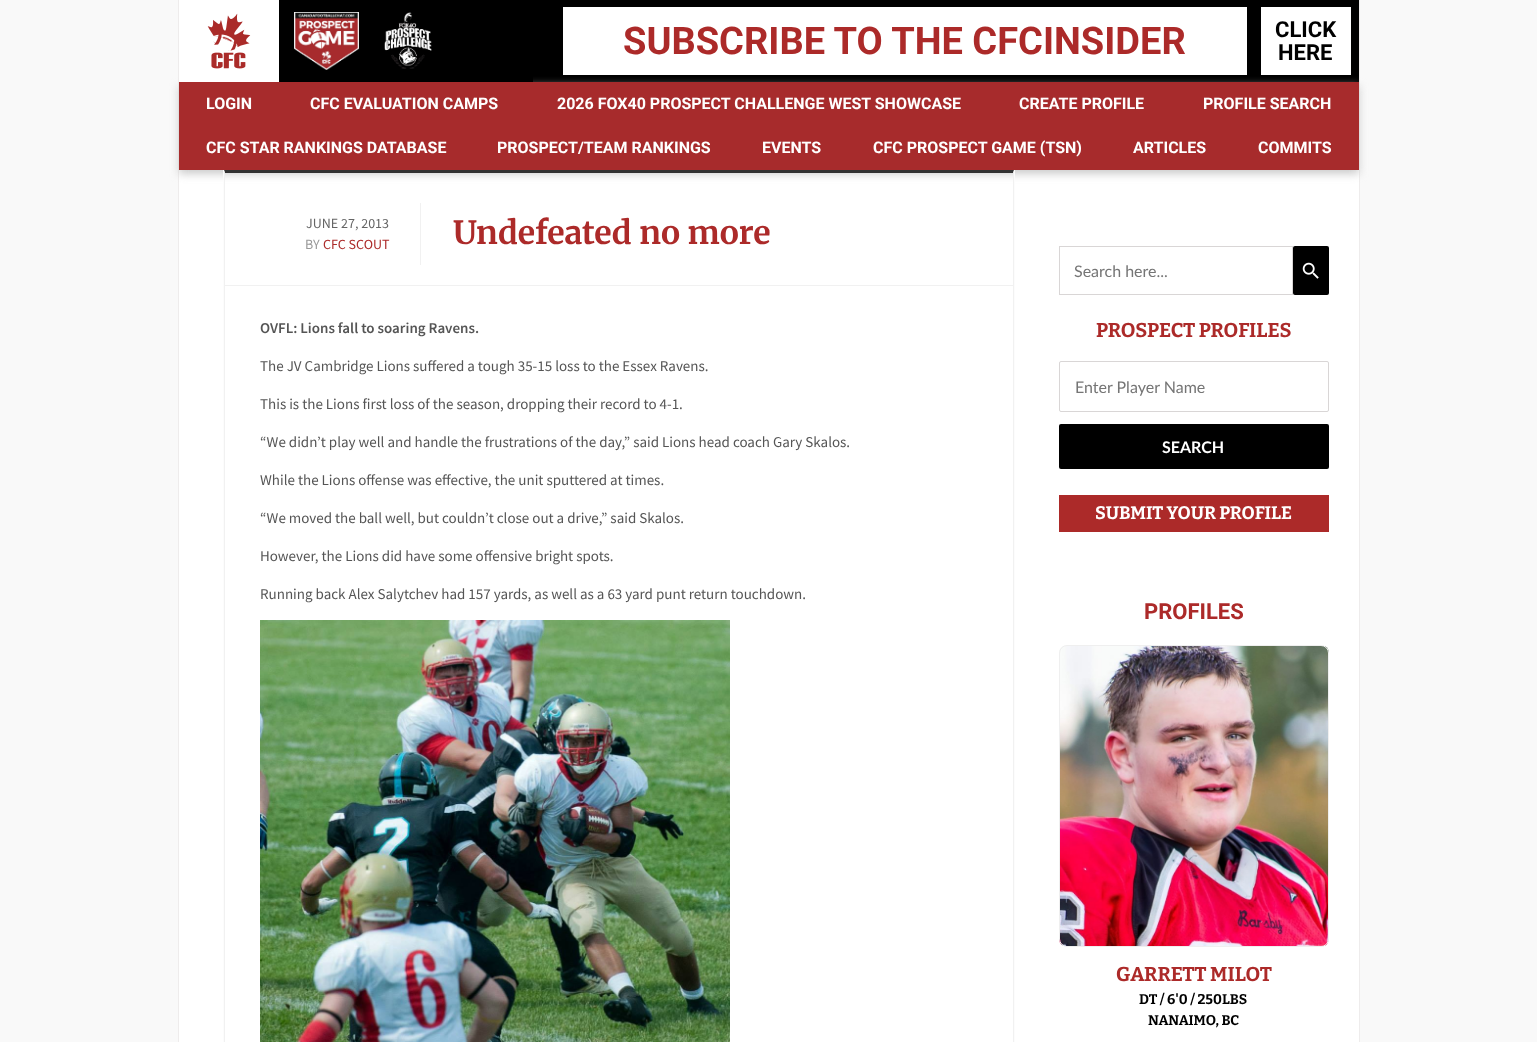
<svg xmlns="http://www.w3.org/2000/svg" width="1537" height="1042">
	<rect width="100%" height="100%" fill="#F9F9F9" />
	<rect x="179" y="170" width="1180" height="872" fill="#FFFFFF" />
	<rect x="1359" y="0" width="1" height="1042" fill="#EEECEC" />
	<rect x="178" y="0" width="1" height="1042" fill="#EEECEC" />
	<rect x="533" y="0" width="826" height="82" fill="#000000" />
	<rect x="179" y="86" width="1180" height="88" fill="#CCCCCC" filter="blur(4px)" />
	<rect x="279" y="0" width="254" height="82" fill="#000000" />
	<rect x="179" y="0" width="100" height="82" fill="#FFFFFF" />
	<image x="207" y="13" width="44" height="56" href="assets/img1.png" />
	<image x="294" y="12" width="65" height="58" href="assets/img2.png" />
	<image x="384" y="12" width="48" height="57" href="assets/img3.png" />
	<rect x="563" y="7" width="684" height="68" fill="#FFFFFF" />
	<text x="623" y="54" font-family="Roboto" font-size="38" font-weight="700" fill="#AC2A29">SUBSCRIBE TO THE CFCINSIDER</text>
	<rect x="1261" y="7" width="90" height="68" fill="#FFFFFF" />
	<g font-family="Roboto" font-size="22" font-weight="700" fill="#000000">
		<text x="1275" y="37">CLICK</text>
		<text x="1278" y="60">HERE</text>
	</g>
	<rect x="179" y="82" width="1180" height="88" fill="#A72B2C" />
	<g font-family="Roboto" font-size="16" font-weight="700" fill="#FFFFFF">
		<text x="206" y="109">LOGIN</text>
		<text x="310" y="109">CFC EVALUATION CAMPS</text>
		<text x="557" y="109">2026 FOX40 PROSPECT CHALLENGE WEST SHOWCASE</text>
		<text x="1019" y="109">CREATE PROFILE</text>
		<text x="1203" y="109">PROFILE SEARCH</text>
		<text x="206" y="153">CFC STAR RANKINGS DATABASE</text>
		<text x="497" y="153">PROSPECT/TEAM RANKINGS</text>
		<text x="762" y="153">EVENTS</text>
		<text x="873" y="153">CFC PROSPECT GAME (TSN)</text>
		<text x="1133" y="153">ARTICLES</text>
		<text x="1258" y="153">COMMITS</text>
	</g>
	<path d="M223 170V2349H1015V170H1014V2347H224V170Z" fill="#FCFCFC" />
	<path d="M224 170H1014L1013 173H225Z" fill="#333333" />
	<path d="M1014 170V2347L1013 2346V173Z" fill="#F1F1F1" />
	<path d="M224 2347V170L225 173V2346Z" fill="#F1F1F1" />
	<rect x="420" y="203" width="1" height="62" fill="#F1F1F1" />
	<text x="306" y="228" font-family="Source Sans Pro" font-size="14" fill="#656565">JUNE 27, 2013</text>
	<text x="305" y="249" font-family="Source Sans Pro" font-size="14" fill="#999999">BY</text>
	<text x="323" y="249" font-family="Source Sans Pro" font-size="14" fill="#AC2A29">CFC SCOUT</text>
	<text x="453" y="244" font-family="Merriweather" font-size="32" font-weight="700" fill="#AC2A29">Undefeated no more</text>
	<rect x="225" y="285" width="788" height="1" fill="#F1F1F1" />
	<text x="260" y="333" font-family="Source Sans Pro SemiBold" font-size="15" font-weight="600" fill="#555555">OVFL: Lions fall to soaring Ravens.</text>
	<g font-family="Source Sans Pro" font-size="15" fill="#555555">
		<text x="260" y="371">The JV Cambridge Lions suffered a tough 35-15 loss to the Essex Ravens.</text>
		<text x="260" y="409">This is the Lions first loss of the season, dropping their record to 4-1.</text>
		<text x="260" y="447">“We didn’t play well and handle the frustrations of the day,” said Lions head coach Gary Skalos.</text>
		<text x="260" y="485">While the Lions offense was effective, the unit sputtered at times.</text>
		<text x="260" y="523">“We moved the ball well, but couldn’t close out a drive,” said Skalos.</text>
		<text x="260" y="561">However, the Lions did have some offensive bright spots.</text>
		<text x="260" y="599">Running back Alex Salytchev had 157 yards, as well as a 63 yard punt return touchdown.</text>
	</g>
	<image x="260" y="620" width="470" height="422" href="assets/img4.png" />
	<rect x="1059.5" y="246.5" width="233" height="48" fill="none" stroke="#D9D6D6" />
	<text x="1074" y="277" font-family="Lato" font-size="16" fill="#757575">Search here...</text>
	<rect x="1293" y="246" width="36" height="49" rx="2" fill="#000000" />
	<image x="1302" y="262" width="17" height="17" href="assets/img5.png" />
	<text x="1096" y="337" font-family="Bitter" font-size="20" font-weight="700" fill="#AC2A29">PROSPECT PROFILES</text>
	<rect x="1059.5" y="361.5" width="269" height="50" rx="1.5" fill="none" stroke="#D9D6D6" />
	<text x="1075" y="393" font-family="Lato" font-size="16" fill="#757575">Enter Player Name</text>
	<rect x="1059" y="424" width="270" height="45" rx="2" fill="#000000" />
	<text x="1162" y="453" font-family="Lato" font-size="16" font-weight="700" fill="#FFFFFF">SEARCH</text>
	<rect x="1059" y="495" width="270" height="37" fill="#AC2A29" />
	<text x="1095" y="519" font-family="Bitter" font-size="18" font-weight="700" fill="#FFFFFF">SUBMIT YOUR PROFILE</text>
	<text x="1144" y="619" font-family="Roboto" font-size="22" font-weight="700" fill="#AC2A29">PROFILES</text>
	<image x="1059" y="646" width="270" height="300" href="assets/img6.png" />
	<rect x="1059.5" y="645.5" width="269" height="301" rx="7.5" fill="none" stroke="#EFEFEF" />
	<text x="1116" y="981" font-family="Bitter" font-size="20" font-weight="700" fill="#AC2A29">GARRETT MILOT</text>
	<g font-family="Bitter" font-size="14" font-weight="700" fill="#000000">
		<text x="1139" y="1004">DT / 6'0 / 250LBS</text>
		<text x="1148" y="1025">NANAIMO, BC</text>
	</g>
</svg>
